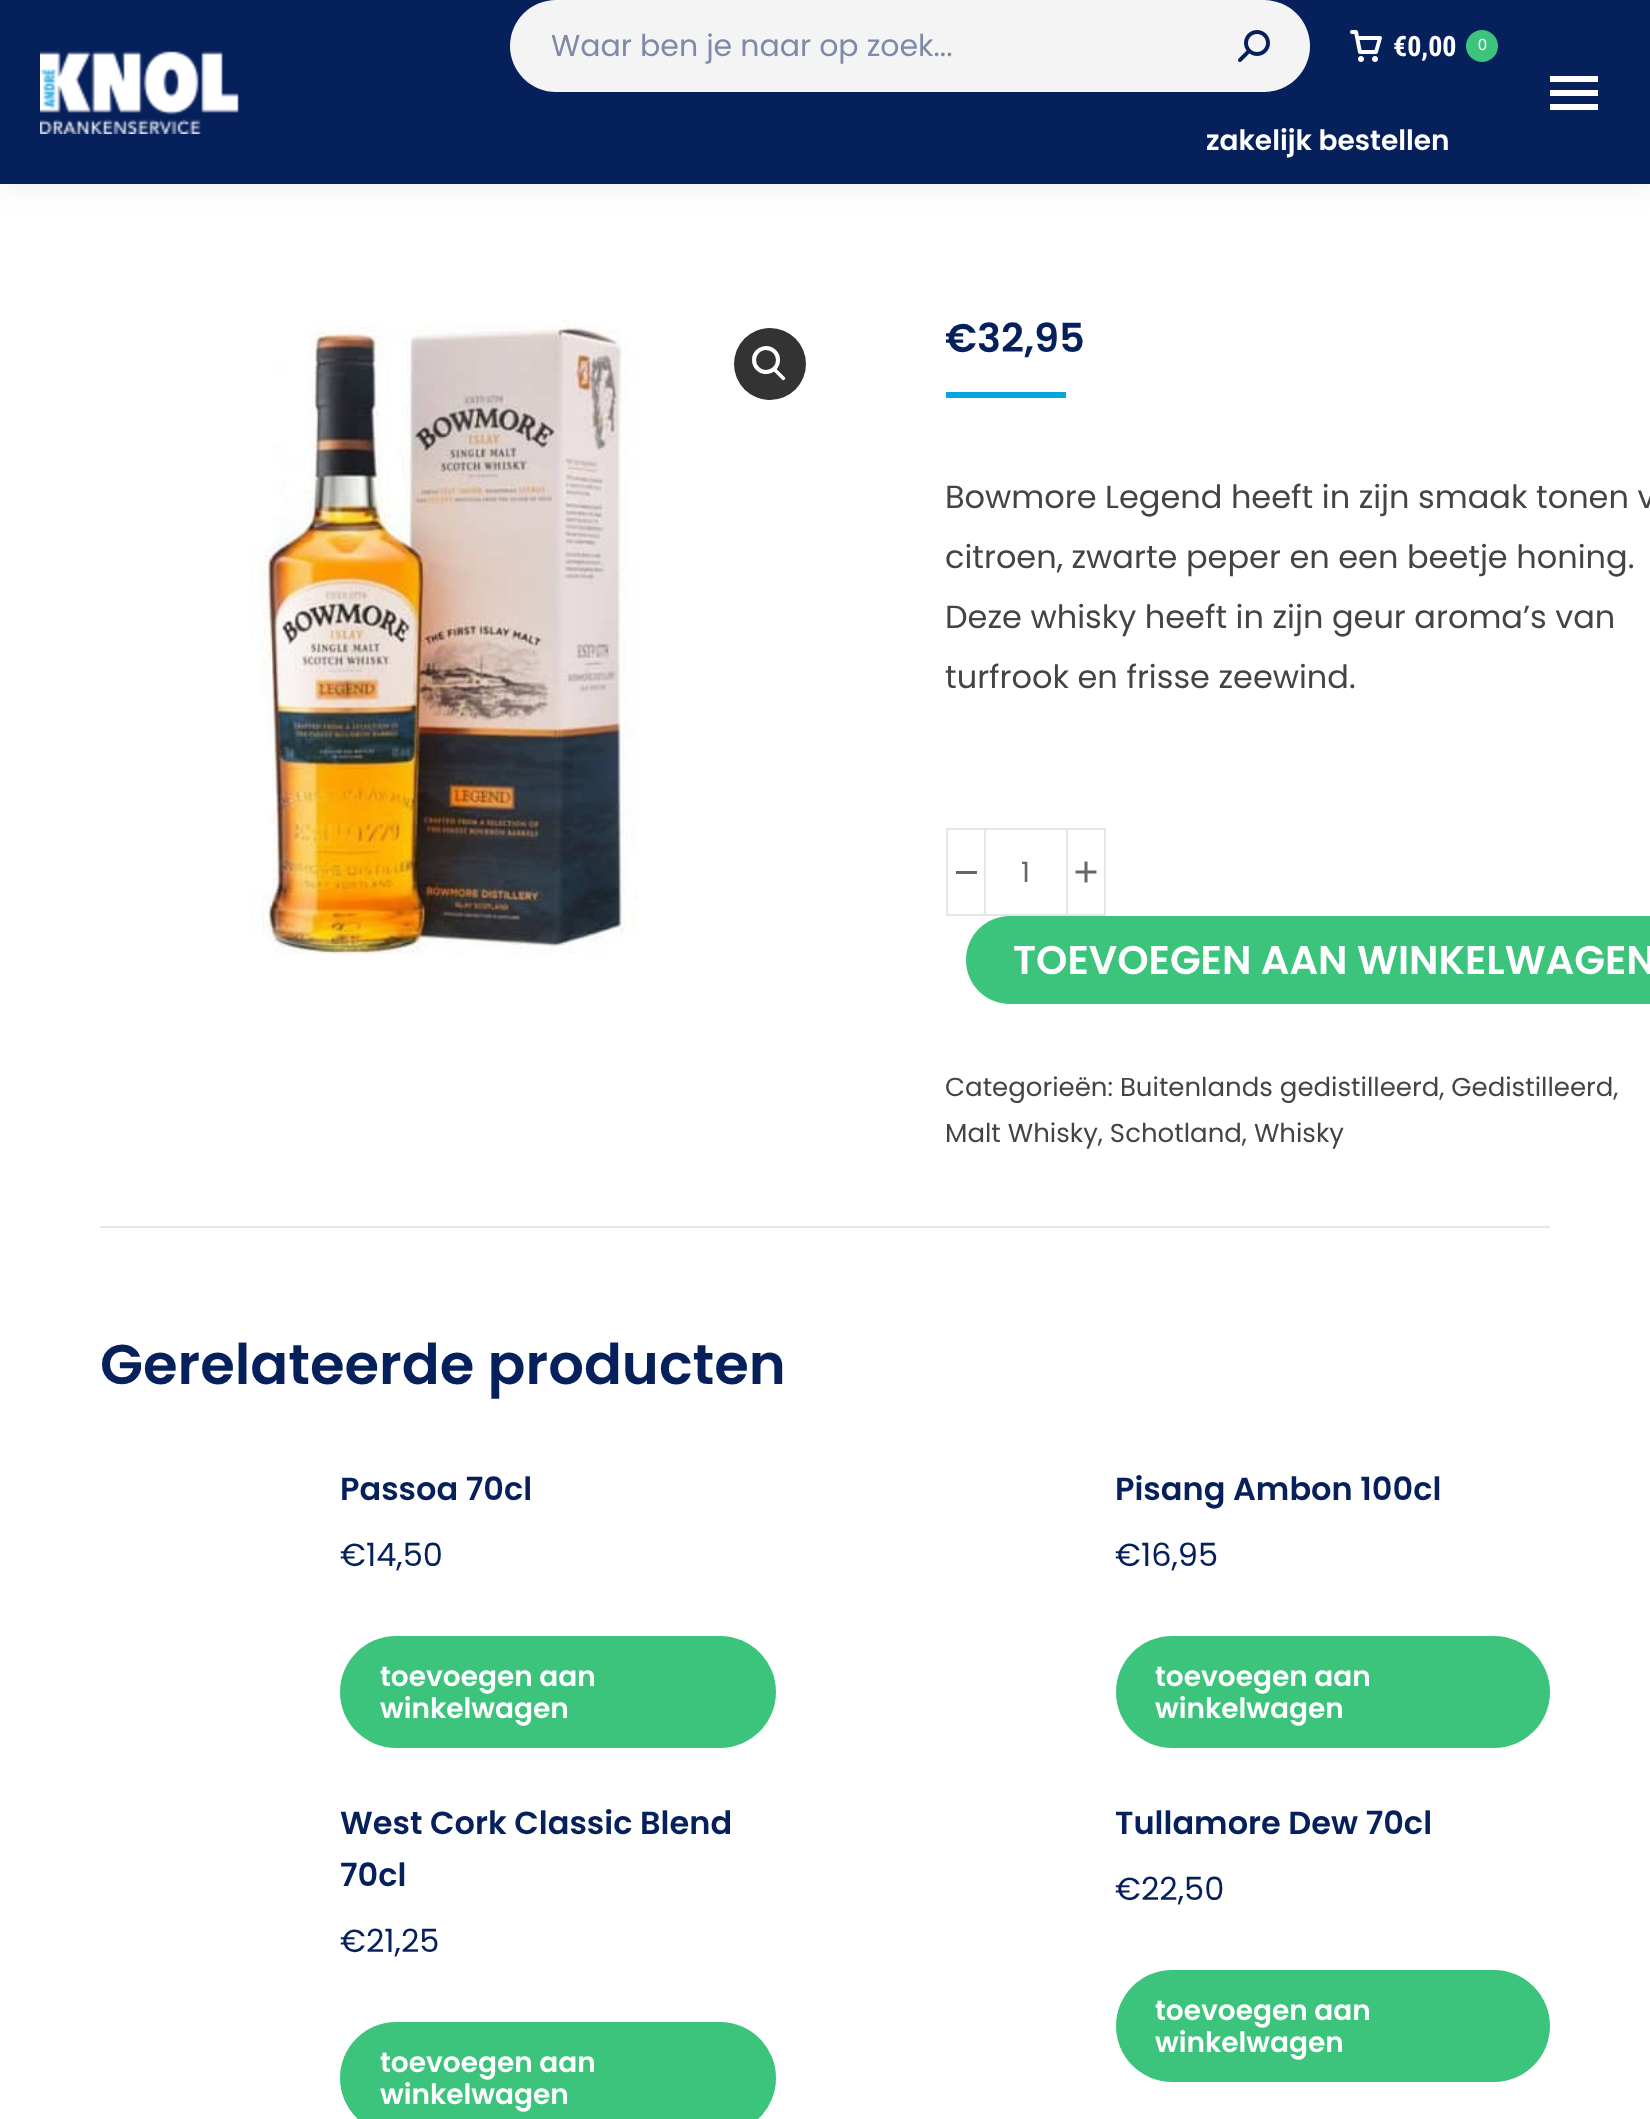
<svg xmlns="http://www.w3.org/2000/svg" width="1650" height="2119">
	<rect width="100%" height="100%" fill="#FFFFFF" />
	<rect x="-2" y="-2" width="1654" height="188" fill="#000000" fill-opacity="0.07" filter="blur(15px)" />
	<rect x="0" y="0" width="1650" height="184" fill="#06205C" />
	<image x="40" y="51" width="199" height="83" href="assets/img1.png" />
	<rect x="510" y="0" width="800" height="92" rx="46" fill="#F4F4F4" />
	<text x="551" y="56" font-family="Poppins" font-size="30" fill="#7D8AA8">Waar ben je naar op zoek...</text>
	<image x="1238" y="30" width="32" height="32" href="assets/img2.png" />
	<image x="1350" y="30" width="32" height="32" href="assets/img3.png" />
	<text x="1393" y="56" font-family="Roboto Condensed" font-size="28" font-weight="700" fill="#FFFFFF">€0,00</text>
	<circle cx="1482" cy="46" r="16" fill="#3CC47C" />
	<text x="1478" y="50" font-family="Liberation Sans" font-size="16" fill="#FFFFFF">0</text>
	<text x="1206" y="150" font-family="Poppins" font-size="28" font-weight="600" fill="#FFFFFF">zakelijk bestellen</text>
	<rect x="1550" y="76" width="48" height="6" fill="#FFFFFF" />
	<rect x="1550" y="90" width="48" height="6" fill="#FFFFFF" />
	<rect x="1550" y="104" width="48" height="6" fill="#FFFFFF" />
	<image x="250" y="320" width="388" height="635" href="assets/img4.png" />
	<circle cx="770" cy="364" r="36" fill="#333333" />
	<circle cx="766" cy="360" r="12" fill="none" stroke="#FFFFFF" stroke-width="4" />
	<path d="M773.5 368.5C774 367.5 775.5 367.5 776 368.5L784.5 377C785.5 377.5 785.5 379 784.5 379.5C784 380.5 782.5 380.5 782 379.5L773.5 371C772.5 370.5 772.5 369 773.5 368.5Z" fill="#FFFFFF" />
	<text x="945" y="352" font-family="Poppins" font-size="40" font-weight="600" fill="#06205C">€32,95</text>
	<rect x="946" y="392" width="120" height="6" fill="#04A6E1" />
	<g font-family="Poppins" font-size="32" fill="#444444">
		<text x="945" y="508">Bowmore Legend heeft in zijn smaak tonen v</text>
		<text x="945" y="568">citroen, zwarte peper en een beetje honing.</text>
		<text x="945" y="628">Deze whisky heeft in zijn geur aroma’s van</text>
		<text x="945" y="688">turfrook en frisse zeewind.</text>
	</g>
	<rect x="947" y="829" width="38" height="86" fill="none" stroke="#E6E6E6" stroke-width="2" />
	<rect x="956" y="871" width="21" height="3" fill="#666666" />
	<rect x="986" y="828" width="80" height="2" fill="#E6E6E6" />
	<rect x="986" y="914" width="80" height="2" fill="#E6E6E6" />
	<text x="1021" y="882" font-family="Poppins" font-size="28" fill="#666666">1</text>
	<rect x="1067" y="829" width="38" height="86" fill="none" stroke="#E6E6E6" stroke-width="2" />
	<image x="1075" y="861" width="22" height="22" href="assets/img5.png" />
	<path d="M1010 916H1650V1004H1010C985.5 1004 966 984.5 966 960C966 935.5 985.5 916 1010 916Z" fill="#3CC47C" />
	<text x="1013" y="974" font-family="Poppins" font-size="40" font-weight="600" fill="#FFFFFF">TOEVOEGEN AAN WINKELWAGEN</text>
	<g font-family="Poppins" font-size="26" fill="#444444">
		<text x="945" y="1096">Categorieën: Buitenlands gedistilleerd, Gedistilleerd,</text>
		<text x="945" y="1142">Malt Whisky, Schotland, Whisky</text>
	</g>
	<rect x="100" y="1226" width="1450" height="2" fill="#E6E6E6" />
	<text x="100" y="1384" font-family="Poppins" font-size="56" font-weight="600" fill="#06205C">Gerelateerde producten</text>
	<text x="340" y="1500" font-family="Poppins" font-size="32" font-weight="600" fill="#06205C">Passoa 70cl</text>
	<text x="340" y="1566" font-family="Poppins" font-size="32" fill="#06205C">€14,50</text>
	<rect x="340" y="1636" width="436" height="112" rx="56" fill="#3CC47C" />
	<g font-family="Poppins" font-size="28" font-weight="600" fill="#FFFFFF">
		<text x="380" y="1686">toevoegen aan</text>
		<text x="380" y="1718">winkelwagen</text>
	</g>
	<text x="1115" y="1500" font-family="Poppins" font-size="32" font-weight="600" fill="#06205C">Pisang Ambon 100cl</text>
	<text x="1115" y="1566" font-family="Poppins" font-size="32" fill="#06205C">€16,95</text>
	<rect x="1116" y="1636" width="434" height="112" rx="56" fill="#3CC47C" />
	<g font-family="Poppins" font-size="28" font-weight="600" fill="#FFFFFF">
		<text x="1155" y="1686">toevoegen aan</text>
		<text x="1155" y="1718">winkelwagen</text>
	</g>
	<g font-family="Poppins" font-size="32" font-weight="600" fill="#06205C">
		<text x="340" y="1834">West Cork Classic Blend</text>
		<text x="340" y="1886">70cl</text>
	</g>
	<text x="340" y="1952" font-family="Poppins" font-size="32" fill="#06205C">€21,25</text>
	<rect x="340" y="2022" width="436" height="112" rx="56" fill="#3CC47C" />
	<g font-family="Poppins" font-size="28" font-weight="600" fill="#FFFFFF">
		<text x="380" y="2072">toevoegen aan</text>
		<text x="380" y="2104">winkelwagen</text>
	</g>
	<text x="1115" y="1834" font-family="Poppins" font-size="32" font-weight="600" fill="#06205C">Tullamore Dew 70cl</text>
	<text x="1115" y="1900" font-family="Poppins" font-size="32" fill="#06205C">€22,50</text>
	<rect x="1116" y="1970" width="434" height="112" rx="56" fill="#3CC47C" />
	<g font-family="Poppins" font-size="28" font-weight="600" fill="#FFFFFF">
		<text x="1155" y="2020">toevoegen aan</text>
		<text x="1155" y="2052">winkelwagen</text>
	</g>
</svg>
